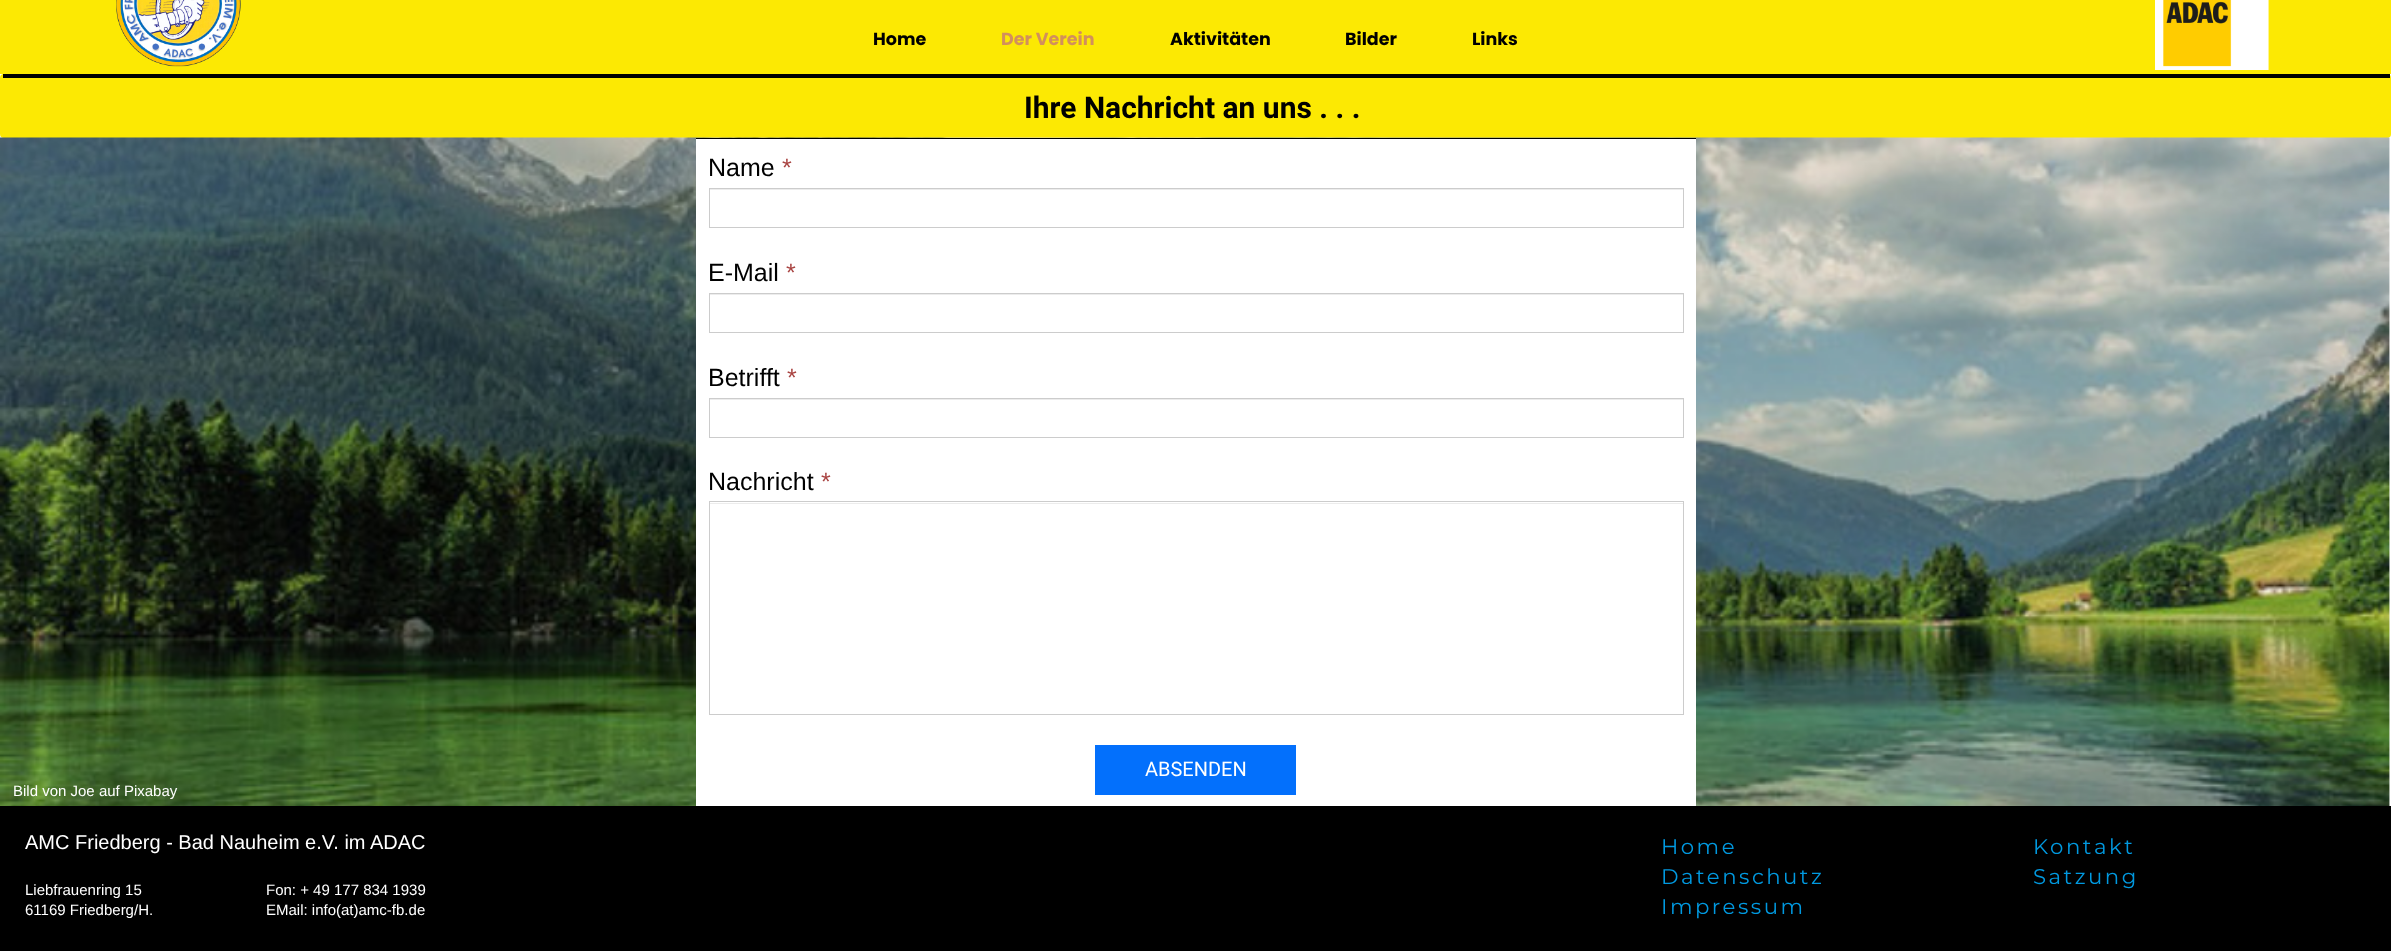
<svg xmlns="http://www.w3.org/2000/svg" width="2391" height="951">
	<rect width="100%" height="100%" fill="#FFFFFF" />
	<rect x="0" y="0" width="2391" height="74" fill="#FCE903" />
	<image x="116" y="0" width="125" height="67" href="assets/img1.png" />
	<text x="873" y="45" font-family="Poppins" font-size="17.5" font-weight="700" fill="#000000">Home</text>
	<text x="1001" y="45" font-family="Poppins" font-size="17.5" font-weight="700" fill="#D28F5C">Der Verein</text>
	<g font-family="Poppins" font-size="17.5" font-weight="700" fill="#000000">
		<text x="1170" y="45">Aktivitäten</text>
		<text x="1345" y="45">Bilder</text>
		<text x="1472" y="45">Links</text>
	</g>
	<image x="2155" y="0" width="114" height="70" href="assets/img2.png" />
	<rect x="0" y="74" width="2391" height="64" rx="4" fill="#FCE903" />
	<rect x="3" y="74" width="2387" height="4" fill="#000000" />
	<text x="1024" y="118" font-family="Roboto" font-size="30" font-weight="700" fill="#000000">Ihre Nachricht an uns . . .</text>
	<image x="0" y="137" width="2390" height="669" href="assets/img3.png" />
	<rect x="696" y="139" width="1000" height="667" fill="#FFFFFF" />
	<rect x="696" y="138" width="1000" height="1" fill="#000000" />
	<text x="708" y="176" font-family="Liberation Sans" font-size="25" fill="#000000">Name</text>
	<text x="782" y="176" font-family="Liberation Sans" font-size="25" fill="#A94442">*</text>
	<rect x="710" y="189" width="973" height="1" fill="#ECECEC" />
	<rect x="709.5" y="188.5" width="974" height="39" fill="none" stroke="#CCCCCC" />
	<text x="708" y="281" font-family="Liberation Sans" font-size="25" fill="#000000">E-Mail</text>
	<text x="786" y="281" font-family="Liberation Sans" font-size="25" fill="#A94442">*</text>
	<rect x="710" y="294" width="973" height="1" fill="#ECECEC" />
	<rect x="709.5" y="293.5" width="974" height="39" fill="none" stroke="#CCCCCC" />
	<text x="708" y="386" font-family="Liberation Sans" font-size="25" fill="#000000">Betrifft</text>
	<text x="787" y="386" font-family="Liberation Sans" font-size="25" fill="#A94442">*</text>
	<rect x="710" y="399" width="973" height="1" fill="#ECECEC" />
	<rect x="709.5" y="398.5" width="974" height="39" fill="none" stroke="#CCCCCC" />
	<text x="708" y="490" font-family="Liberation Sans" font-size="25" fill="#000000">Nachricht</text>
	<text x="821" y="490" font-family="Liberation Sans" font-size="25" fill="#A94442">*</text>
	<rect x="710" y="503" width="973" height="1" fill="#ECECEC" />
	<rect x="709.5" y="501.5" width="974" height="213" fill="none" stroke="#CCCCCC" />
	<rect x="1095" y="745" width="201" height="50" fill="#0370FC" />
	<text x="1145" y="776" font-family="Roboto" font-size="20" fill="#FFFFFF">ABSENDEN</text>
	<text x="13" y="796" font-family="Liberation Sans" font-size="15" fill="#FFFFFF">Bild von Joe auf Pixabay</text>
	<rect x="0" y="806" width="2391" height="145" fill="#000000" />
	<text x="25" y="849" font-family="Liberation Sans" font-size="20" fill="#FFFFFF">AMC Friedberg - Bad Nauheim e.V. im ADAC</text>
	<g font-family="Liberation Sans" font-size="15" fill="#FFFFFF">
		<text x="25" y="895">Liebfrauenring 15</text>
		<text x="25" y="915">61169 Friedberg/H.</text>
		<text x="266" y="895">Fon: + 49 177 834 1939</text>
		<text x="266" y="915">EMail: info(at)amc-fb.de</text>
	</g>
	<g font-family="Montserrat" font-size="21.25" letter-spacing="2.5" fill="#0099E0">
		<text x="1661" y="854">Home</text>
		<text x="1661" y="884">Datenschutz</text>
		<text x="1661" y="914">Impressum</text>
		<text x="2033" y="854">Kontakt</text>
		<text x="2033" y="884">Satzung</text>
	</g>
</svg>
